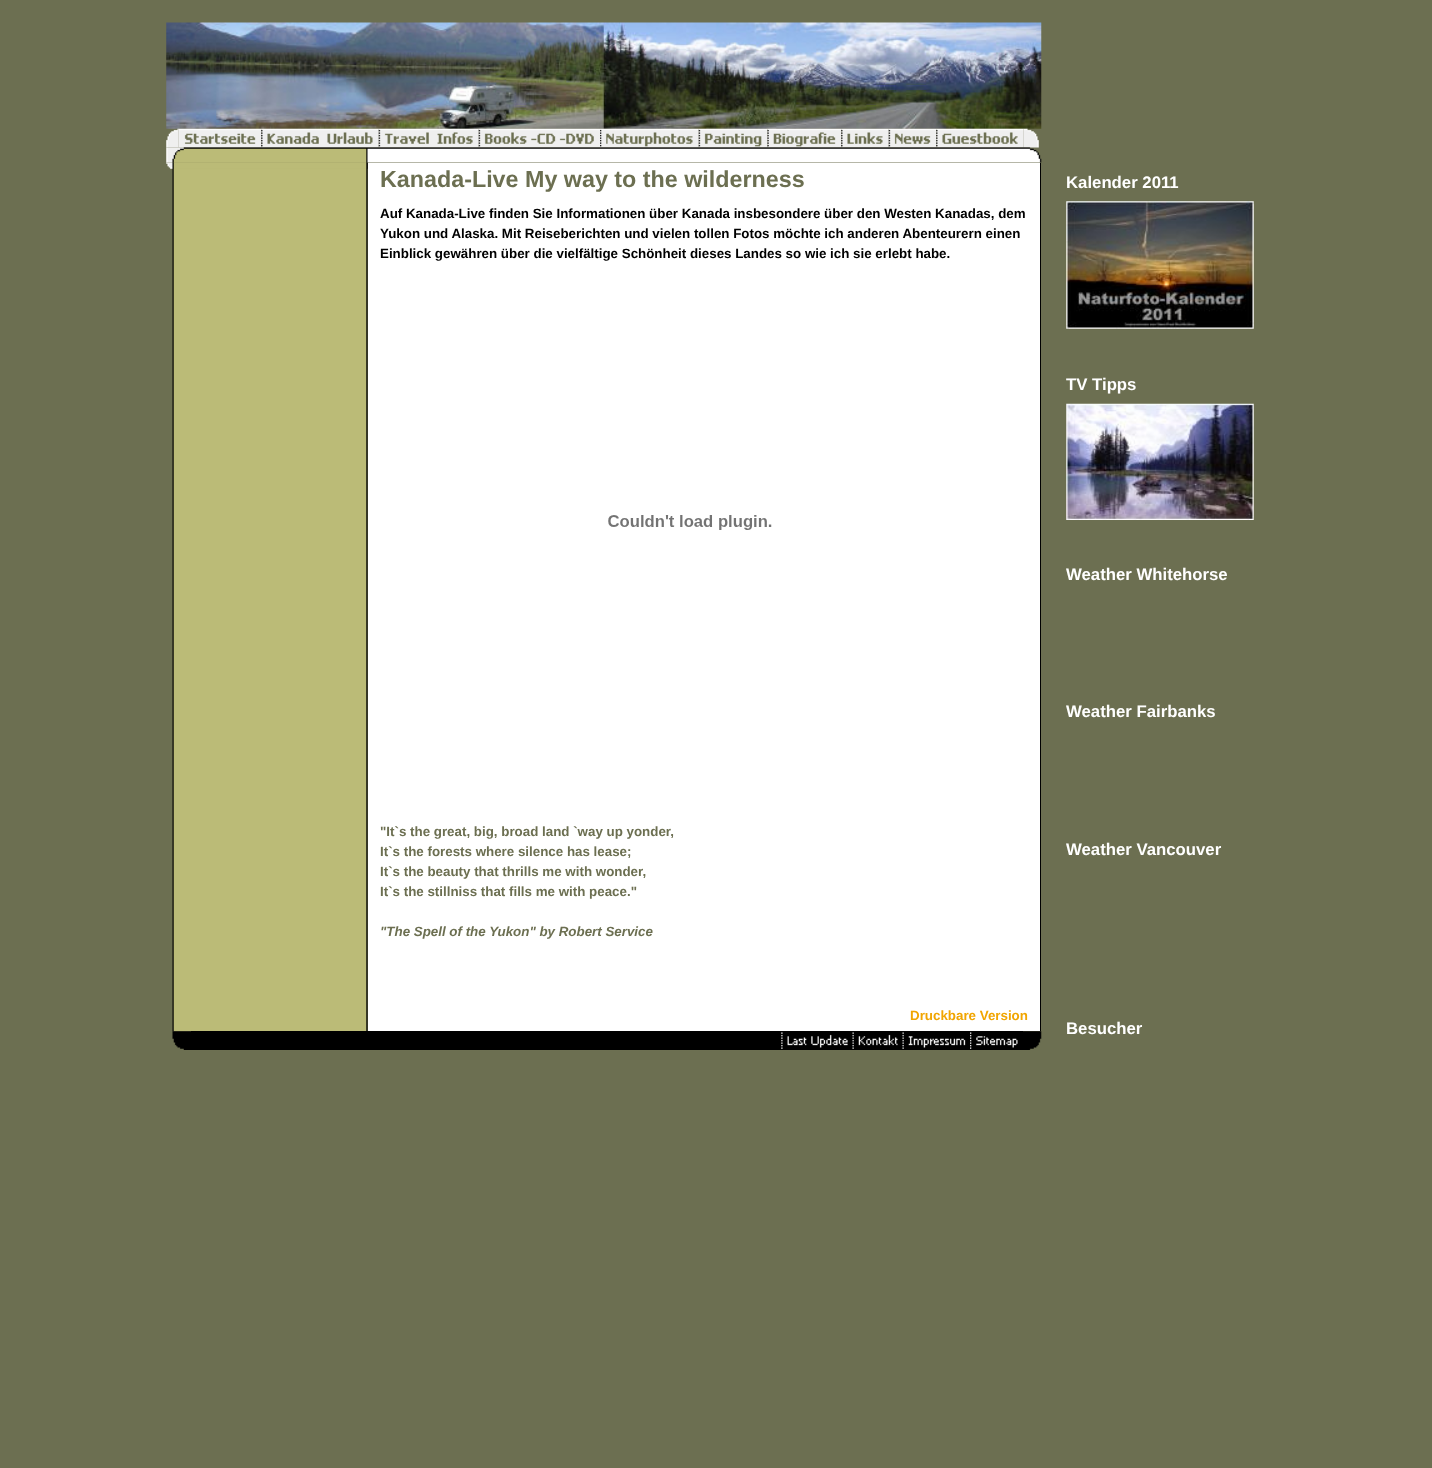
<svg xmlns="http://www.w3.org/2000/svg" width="1432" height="1468">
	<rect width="100%" height="100%" fill="#6C6F51" />
	<image x="166" y="22" width="876" height="107" href="assets/img1.png" />
	<image x="166" y="128" width="13" height="20" href="assets/img2.png" />
	<image x="178" y="128" width="84" height="20" href="assets/img3.png" />
	<image x="261" y="128" width="118" height="20" href="assets/img4.png" />
	<image x="378" y="128" width="101" height="20" href="assets/img5.png" />
	<image x="478" y="128" width="122" height="20" href="assets/img6.png" />
	<image x="600" y="128" width="99" height="20" href="assets/img7.png" />
	<image x="698" y="128" width="70" height="20" href="assets/img8.png" />
	<image x="767" y="128" width="75" height="20" href="assets/img9.png" />
	<image x="841" y="128" width="48" height="20" href="assets/img10.png" />
	<image x="888" y="128" width="49" height="20" href="assets/img11.png" />
	<image x="936" y="128" width="88" height="20" href="assets/img12.png" />
	<image x="1023" y="128" width="16" height="20" href="assets/img13.png" />
	<image x="172" y="162" width="196" height="870" href="assets/img15.png" />
	<image x="166" y="147" width="876" height="16" href="assets/img14.png" />
	<image x="166" y="162" width="202" height="7" href="assets/img16.png" />
	<rect x="368" y="163" width="672" height="868" fill="#FFFFFF" />
	<text x="380" y="187" font-family="Liberation Sans" font-size="23.3" font-weight="700" fill="#6C6F51">Kanada-Live My way to the wilderness</text>
	<g font-family="Liberation Sans" font-size="13.35" font-weight="700" fill="#000000">
		<text x="380" y="218">Auf Kanada-Live finden Sie Informationen über Kanada insbesondere über den Westen Kanadas, dem</text>
		<text x="380" y="238">Yukon und Alaska. Mit Reiseberichten und vielen tollen Fotos möchte ich anderen Abenteurern einen</text>
		<text x="380" y="258">Einblick gewähren über die vielfältige Schönheit dieses Landes so wie ich sie erlebt habe.</text>
	</g>
	<image x="608" y="515" width="164" height="15" href="assets/img17.png" />
	<g font-family="Liberation Sans" font-size="13.35" font-weight="700" fill="#6C6F51">
		<text x="380" y="836">"It`s the great, big, broad land `way up yonder,</text>
		<text x="380" y="856">It`s the forests where silence has lease;</text>
		<text x="380" y="876">It`s the beauty that thrills me with wonder,</text>
		<text x="380" y="896">It`s the stillniss that fills me with peace."</text>
	</g>
	<text x="380" y="936" font-family="Liberation Sans" font-size="13.35" font-weight="700" font-style="italic" fill="#6C6F51">"The Spell of the Yukon" by Robert Service</text>
	<text x="910" y="1020" font-family="Liberation Sans" font-size="13.35" font-weight="700" fill="#F1A500">Druckbare Version</text>
	<rect x="1040" y="163" width="1" height="868" fill="#000000" />
	<image x="172" y="1031" width="19" height="19" href="assets/img18.png" />
	<rect x="191" y="1031" width="832" height="19" fill="#000000" />
	<image x="781" y="1032" width="67" height="17" href="assets/img19.png" />
	<image x="852" y="1032" width="46" height="17" href="assets/img20.png" />
	<image x="902" y="1032" width="64" height="17" href="assets/img21.png" />
	<image x="970" y="1032" width="48" height="17" href="assets/img22.png" />
	<image x="1023" y="1031" width="19" height="19" href="assets/img23.png" />
	<text x="1066" y="188" font-family="Liberation Sans" font-size="16.75" font-weight="700" fill="#FFFFFF">Kalender 2011</text>
	<image x="1066" y="201" width="188" height="128" href="assets/img24.png" />
	<text x="1066" y="390" font-family="Liberation Sans" font-size="16.75" font-weight="700" fill="#FFFFFF">TV Tipps</text>
	<image x="1066" y="403" width="188" height="117" href="assets/img25.png" />
	<g font-family="Liberation Sans" font-size="16.75" font-weight="700" fill="#FFFFFF">
		<text x="1066" y="580">Weather Whitehorse</text>
		<text x="1066" y="717">Weather Fairbanks</text>
		<text x="1066" y="855">Weather Vancouver</text>
		<text x="1066" y="1034">Besucher</text>
	</g>
</svg>
